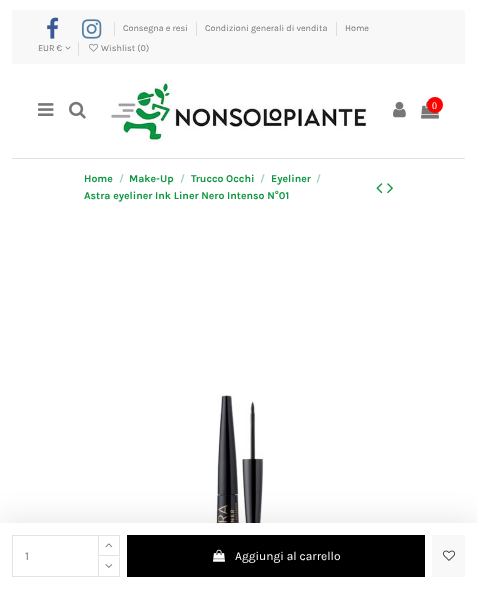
<svg xmlns="http://www.w3.org/2000/svg" width="477" height="606">
	<rect width="100%" height="100%" fill="#FFFFFF" />
	<rect x="12" y="10" width="453" height="54" fill="#F8F8F8" />
	<image x="47" y="17" width="12" height="22" href="assets/img1.png" />
	<image x="82" y="19" width="20" height="20" href="assets/img2.png" />
	<rect x="114" y="22" width="1" height="14" fill="#DEDEDE" />
	<text x="123" y="31" font-family="Karla" font-size="9" fill="#777777">Consegna e resi</text>
	<rect x="196" y="22" width="1" height="14" fill="#DEDEDE" />
	<text x="205" y="31" font-family="Karla" font-size="9" fill="#777777">Condizioni generali di vendita</text>
	<rect x="336" y="22" width="1" height="14" fill="#DEDEDE" />
	<g font-family="Karla" font-size="9" fill="#777777">
		<text x="345" y="31">Home</text>
		<text x="38" y="51">EUR €</text>
	</g>
	<image x="65" y="46" width="6" height="4" href="assets/img3.png" />
	<rect x="78" y="42" width="1" height="14" fill="#DEDEDE" />
	<image x="89" y="43" width="9" height="9" href="assets/img4.png" />
	<text x="101" y="51" font-family="Karla" font-size="9" fill="#777777">Wishlist (0)</text>
	<rect x="12" y="158" width="453" height="1" fill="#E3E3E3" />
	<image x="38" y="103" width="16" height="13" href="assets/img5.png" />
	<image x="69" y="101" width="17" height="18" href="assets/img6.png" />
	<image x="111" y="79" width="256" height="64" href="assets/img7.png" />
	<image x="393" y="101" width="13" height="17" href="assets/img8.png" />
	<image x="421" y="100" width="18" height="19" href="assets/img9.png" />
	<circle cx="435" cy="105" r="8" fill="#FF0000" />
	<text x="432" y="109" font-family="Liberation Serif" font-size="10" fill="#FFFFFF">0</text>
	<text x="84" y="182" font-family="Karla" font-size="10.5" font-weight="700" fill="#0E9641">Home</text>
	<text x="119" y="182" font-family="Karla" font-size="10.5" font-weight="700" fill="#9FD5B3">/</text>
	<text x="129" y="182" font-family="Karla" font-size="10.5" font-weight="700" fill="#0E9641">Make-Up</text>
	<text x="180" y="182" font-family="Karla" font-size="10.5" font-weight="700" fill="#9FD5B3">/</text>
	<text x="191" y="182" font-family="Karla" font-size="10.5" font-weight="700" fill="#0E9641">Trucco Occhi</text>
	<text x="260" y="182" font-family="Karla" font-size="10.5" font-weight="700" fill="#9FD5B3">/</text>
	<text x="271" y="182" font-family="Karla" font-size="10.5" font-weight="700" fill="#0E9641">Eyeliner</text>
	<text x="316" y="182" font-family="Karla" font-size="10.5" font-weight="700" fill="#9FD5B3">/</text>
	<text x="84" y="199" font-family="Karla" font-size="10.5" font-weight="700" fill="#0E9641">Astra eyeliner Ink Liner Nero Intenso N°01</text>
	<image x="376" y="183" width="7" height="11" href="assets/img10.png" />
	<image x="387" y="183" width="6" height="11" href="assets/img11.png" />
	<image x="214" y="394" width="50" height="129" href="assets/img12.png" />
	<rect x="0" y="519" width="477" height="83" fill="#000000" fill-opacity="0.09" filter="blur(15px)" />
	<rect x="0" y="523" width="477" height="83" fill="#FFFFFF" />
	<rect x="12.5" y="535.5" width="86" height="41" fill="none" stroke="#E3E3E3" />
	<text x="25" y="560" font-family="Karla" font-size="12" fill="#777777">1</text>
	<rect x="98.5" y="535.5" width="21" height="20" fill="none" stroke="#E3E3E3" />
	<image x="105" y="543" width="8" height="5" href="assets/img13.png" />
	<rect x="98" y="556" width="1" height="20" fill="#FFFFFF" />
	<path d="M120 556V577L119 576V557Z" fill="#E3E3E3" />
	<rect x="98" y="576" width="22" height="1" fill="#E3E3E3" />
	<path d="M98 577V556L99 557V576Z" fill="#E3E3E3" />
	<image x="105" y="564" width="8" height="4" href="assets/img14.png" />
	<rect x="127" y="535" width="298" height="42" fill="#000000" />
	<image x="213" y="549" width="12" height="13" href="assets/img15.png" />
	<text x="235" y="560" font-family="Karla" font-size="12" fill="#FFFFFF">Aggiungi al carrello</text>
	<rect x="432" y="535" width="33" height="42" fill="#F8F8F8" />
	<image x="443" y="550" width="12" height="11" href="assets/img16.png" />
</svg>
